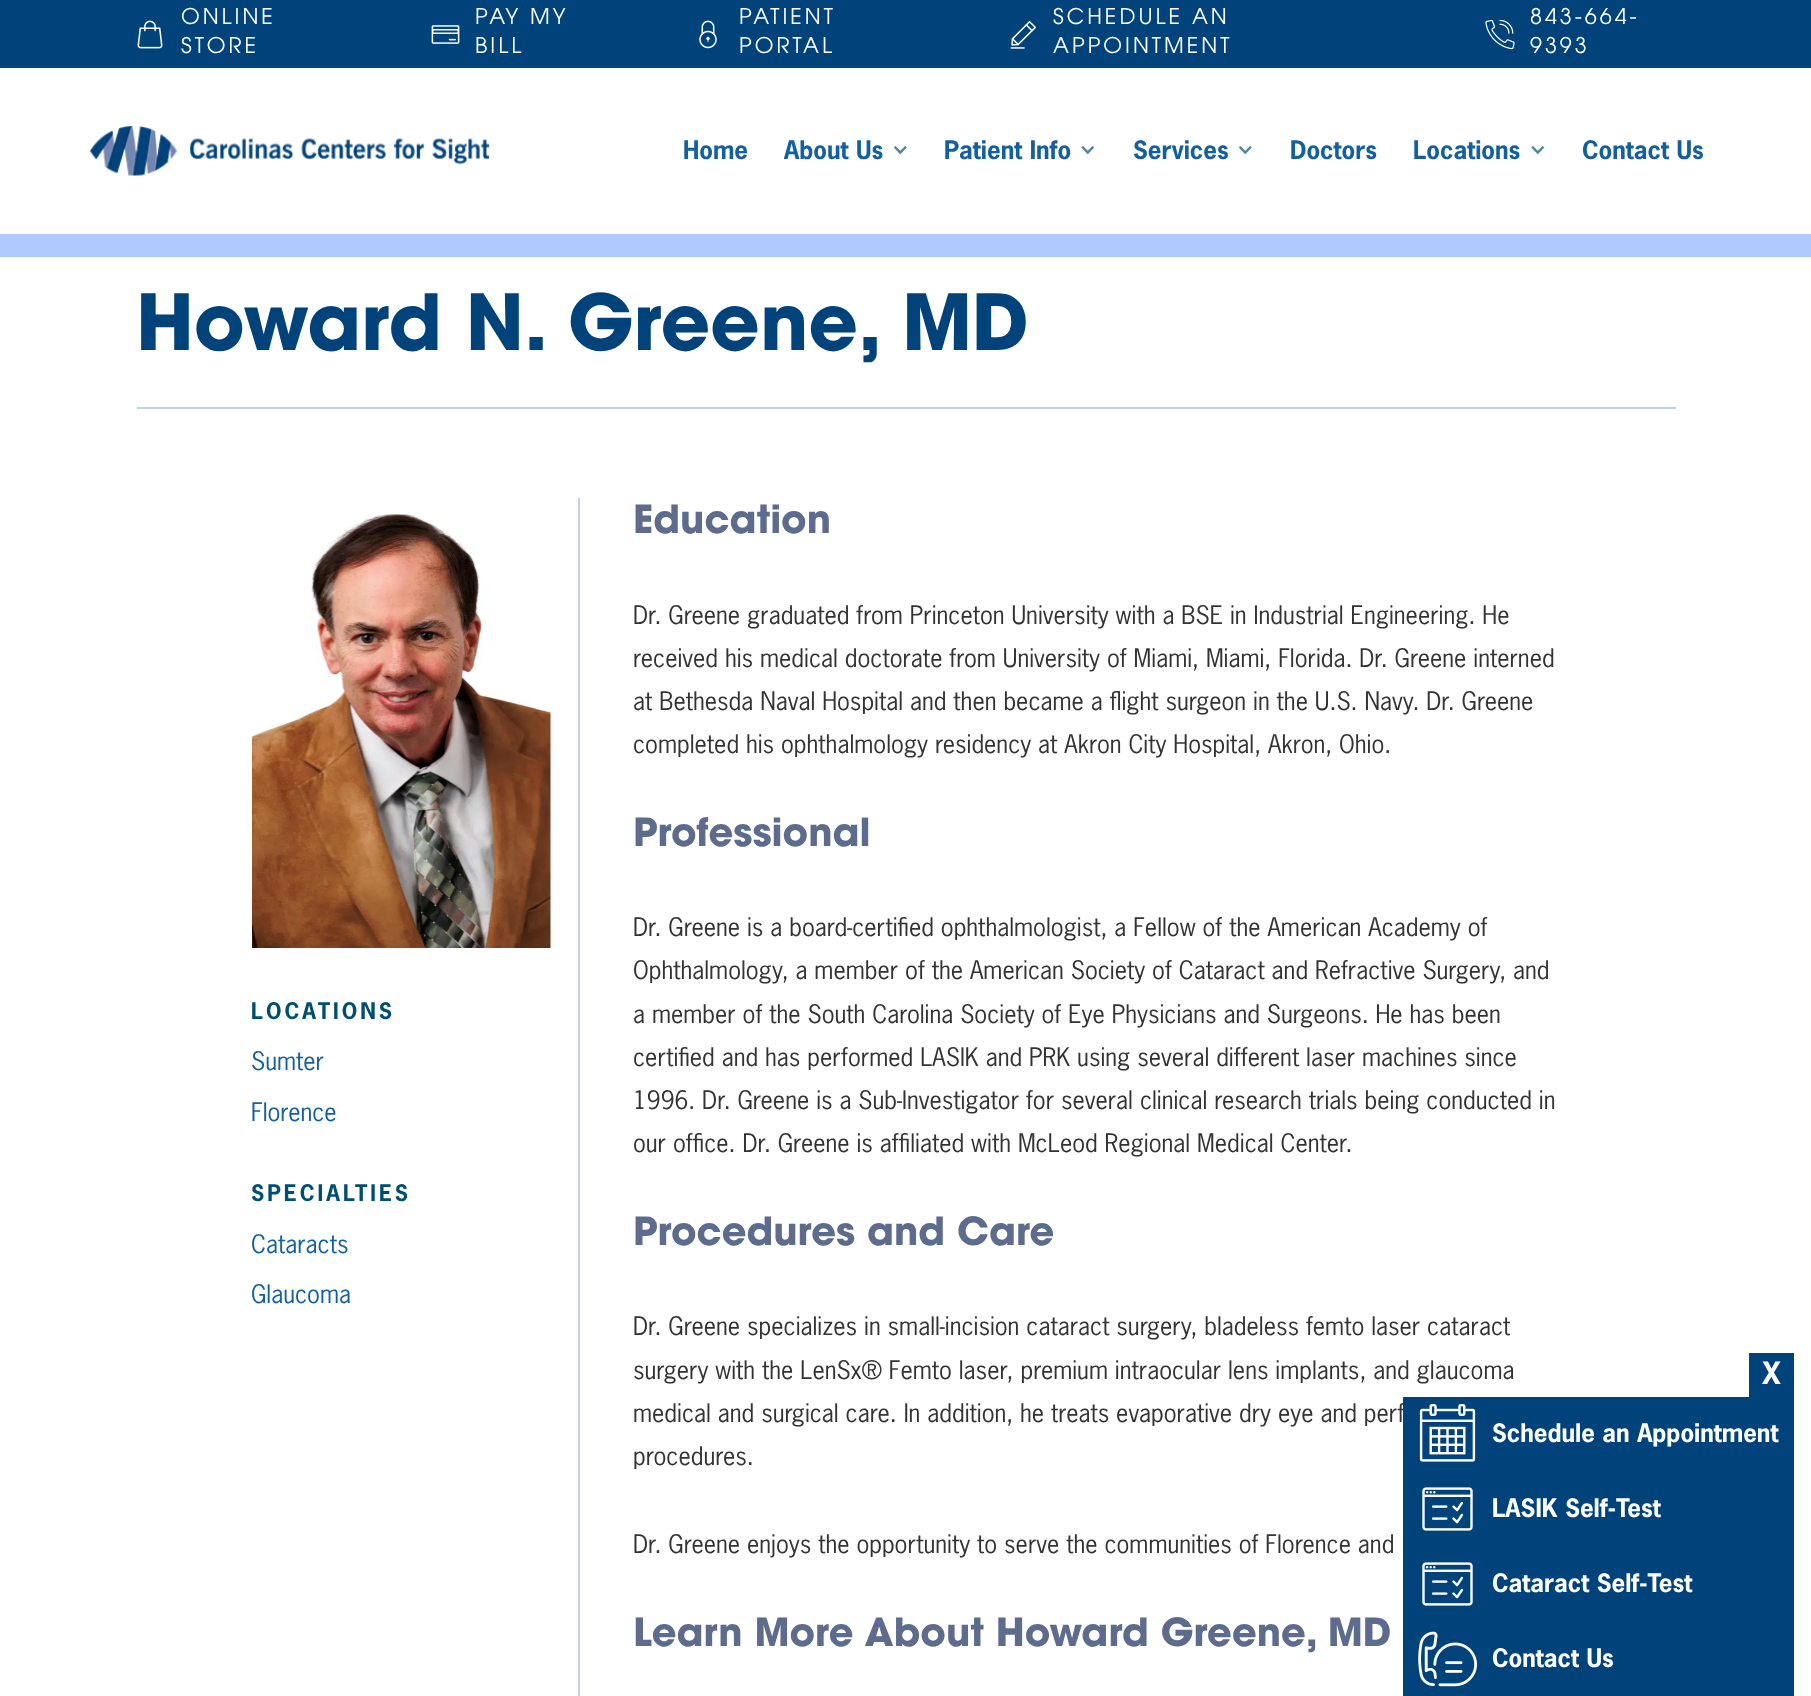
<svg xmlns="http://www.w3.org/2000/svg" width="1811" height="1696">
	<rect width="100%" height="100%" fill="#FFFFFF" />
	<rect x="0" y="0" width="1811" height="68" fill="#00437B" />
	<image x="137" y="20" width="26" height="29" href="assets/img1.png" />
	<g font-family="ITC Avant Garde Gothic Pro" font-size="21.5" font-weight="300" letter-spacing="3" fill="#FFFFFF">
		<text x="181" y="24">ONLINE</text>
		<text x="181" y="53">STORE</text>
	</g>
	<image x="431" y="25" width="29" height="19" href="assets/img2.png" />
	<g font-family="ITC Avant Garde Gothic Pro" font-size="21.5" font-weight="300" letter-spacing="3" fill="#FFFFFF">
		<text x="475" y="24">PAY MY</text>
		<text x="475" y="53">BILL</text>
	</g>
	<image x="699" y="20" width="18" height="29" href="assets/img3.png" />
	<g font-family="ITC Avant Garde Gothic Pro" font-size="21.5" font-weight="300" letter-spacing="3" fill="#FFFFFF">
		<text x="739" y="24">PATIENT</text>
		<text x="739" y="53">PORTAL</text>
	</g>
	<image x="1010" y="21" width="26" height="28" href="assets/img4.png" />
	<g font-family="ITC Avant Garde Gothic Pro" font-size="21.5" font-weight="300" letter-spacing="3" fill="#FFFFFF">
		<text x="1053" y="24">SCHEDULE AN</text>
		<text x="1053" y="53">APPOINTMENT</text>
	</g>
	<image x="1485" y="20" width="30" height="30" href="assets/img5.png" />
	<g font-family="ITC Avant Garde Gothic Pro" font-size="21.5" font-weight="300" letter-spacing="3" fill="#FFFFFF">
		<text x="1530" y="24">843-664-</text>
		<text x="1530" y="53">9393</text>
	</g>
	<image x="90" y="126" width="400" height="50" href="assets/img6.png" />
	<g font-family="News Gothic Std" font-size="24" font-weight="700" fill="#14609E">
		<text x="683" y="159">Home</text>
		<text x="784" y="159">About Us</text>
	</g>
	<image x="893" y="146" width="14" height="9" href="assets/img7.png" />
	<text x="944" y="159" font-family="News Gothic Std" font-size="24" font-weight="700" fill="#14609E">Patient Info</text>
	<image x="1081" y="146" width="14" height="9" href="assets/img8.png" />
	<text x="1133" y="159" font-family="News Gothic Std" font-size="24" font-weight="700" fill="#14609E">Services</text>
	<image x="1238" y="146" width="14" height="9" href="assets/img7.png" />
	<g font-family="News Gothic Std" font-size="24" font-weight="700" fill="#14609E">
		<text x="1290" y="159">Doctors</text>
		<text x="1413" y="159">Locations</text>
	</g>
	<image x="1531" y="146" width="14" height="9" href="assets/img8.png" />
	<text x="1582" y="159" font-family="News Gothic Std" font-size="24" font-weight="700" fill="#14609E">Contact Us</text>
	<rect x="0" y="234" width="1811" height="23" fill="#B0C9FF" />
	<rect x="137" y="407" width="1539" height="2" fill="#BFD3DC" />
	<text x="136" y="350" font-family="ITC Avant Garde Gothic Pro" font-size="76.75" font-weight="700" fill="#00437B">Howard N. Greene, MD</text>
	<rect x="578" y="498" width="2" height="1198" fill="#BFD3DC" />
	<image x="252" y="514" width="299" height="434" href="assets/img9.png" />
	<text x="251" y="1019" font-family="News Gothic Std" font-size="21.5" font-weight="700" letter-spacing="3" fill="#004F71">LOCATIONS</text>
	<g font-family="News Gothic Std" font-size="24" fill="#14609E">
		<text x="251" y="1070">Sumter</text>
		<text x="251" y="1121">Florence</text>
	</g>
	<text x="251" y="1201" font-family="News Gothic Std" font-size="21.5" font-weight="700" letter-spacing="3" fill="#004F71">SPECIALTIES</text>
	<g font-family="News Gothic Std" font-size="24" fill="#14609E">
		<text x="251" y="1253">Cataracts</text>
		<text x="251" y="1303">Glaucoma</text>
	</g>
	<text x="633" y="533" font-family="ITC Avant Garde Gothic Pro" font-size="38.4" font-weight="700" fill="#5D6C8D">Education</text>
	<g font-family="News Gothic Std" font-size="24" fill="#333333">
		<text x="633" y="624">Dr. Greene graduated from Princeton University with a BSE in Industrial Engineering. He</text>
		<text x="633" y="667">received his medical doctorate from University of Miami, Miami, Florida. Dr. Greene interned</text>
		<text x="633" y="710">at Bethesda Naval Hospital and then became a flight surgeon in the U.S. Navy. Dr. Greene</text>
		<text x="633" y="753">completed his ophthalmology residency at Akron City Hospital, Akron, Ohio.</text>
	</g>
	<text x="633" y="846" font-family="ITC Avant Garde Gothic Pro" font-size="38.4" font-weight="700" fill="#5D6C8D">Professional</text>
	<g font-family="News Gothic Std" font-size="24" fill="#333333">
		<text x="633" y="936">Dr. Greene is a board-certified ophthalmologist, a Fellow of the American Academy of</text>
		<text x="633" y="979">Ophthalmology, a member of the American Society of Cataract and Refractive Surgery, and</text>
		<text x="633" y="1023">a member of the South Carolina Society of Eye Physicians and Surgeons. He has been</text>
		<text x="633" y="1066">certified and has performed LASIK and PRK using several different laser machines since</text>
		<text x="633" y="1109">1996. Dr. Greene is a Sub-Investigator for several clinical research trials being conducted in</text>
		<text x="633" y="1152">our office. Dr. Greene is affiliated with McLeod Regional Medical Center.</text>
	</g>
	<text x="633" y="1245" font-family="ITC Avant Garde Gothic Pro" font-size="38.4" font-weight="700" fill="#5D6C8D">Procedures and Care</text>
	<g font-family="News Gothic Std" font-size="24" fill="#333333">
		<text x="633" y="1335">Dr. Greene specializes in small-incision cataract surgery, bladeless femto laser cataract</text>
		<text x="633" y="1379">surgery with the LenSx® Femto laser, premium intraocular lens implants, and glaucoma</text>
		<text x="633" y="1422">medical and surgical care. In addition, he treats evaporative dry eye and perf</text>
		<text x="633" y="1465">procedures.</text>
		<text x="633" y="1553">Dr. Greene enjoys the opportunity to serve the communities of Florence and</text>
	</g>
	<text x="633" y="1646" font-family="ITC Avant Garde Gothic Pro" font-size="38.4" font-weight="700" fill="#5D6C8D">Learn More About Howard Greene, MD</text>
	<rect x="1749" y="1353" width="45" height="44" fill="#00437B" />
	<text x="1762" y="1384" font-family="News Gothic Std" font-size="29" font-weight="700" fill="#FFFFFF">X</text>
	<rect x="1403" y="1397" width="391" height="299" fill="#00437B" />
	<image x="1419" y="1404" width="57" height="58" href="assets/img10.png" />
	<text x="1492" y="1442" font-family="News Gothic Std" font-size="24" font-weight="700" fill="#FFFFFF">Schedule an Appointment</text>
	<image x="1422" y="1487" width="51" height="44" href="assets/img11.png" />
	<text x="1492" y="1517" font-family="News Gothic Std" font-size="24" font-weight="700" fill="#FFFFFF">LASIK Self-Test</text>
	<image x="1422" y="1562" width="51" height="44" href="assets/img11.png" />
	<text x="1492" y="1592" font-family="News Gothic Std" font-size="24" font-weight="700" fill="#FFFFFF">Cataract Self-Test</text>
	<image x="1418" y="1631" width="59" height="56" href="assets/img12.png" />
	<text x="1492" y="1667" font-family="News Gothic Std" font-size="24" font-weight="700" fill="#FFFFFF">Contact Us</text>
</svg>
